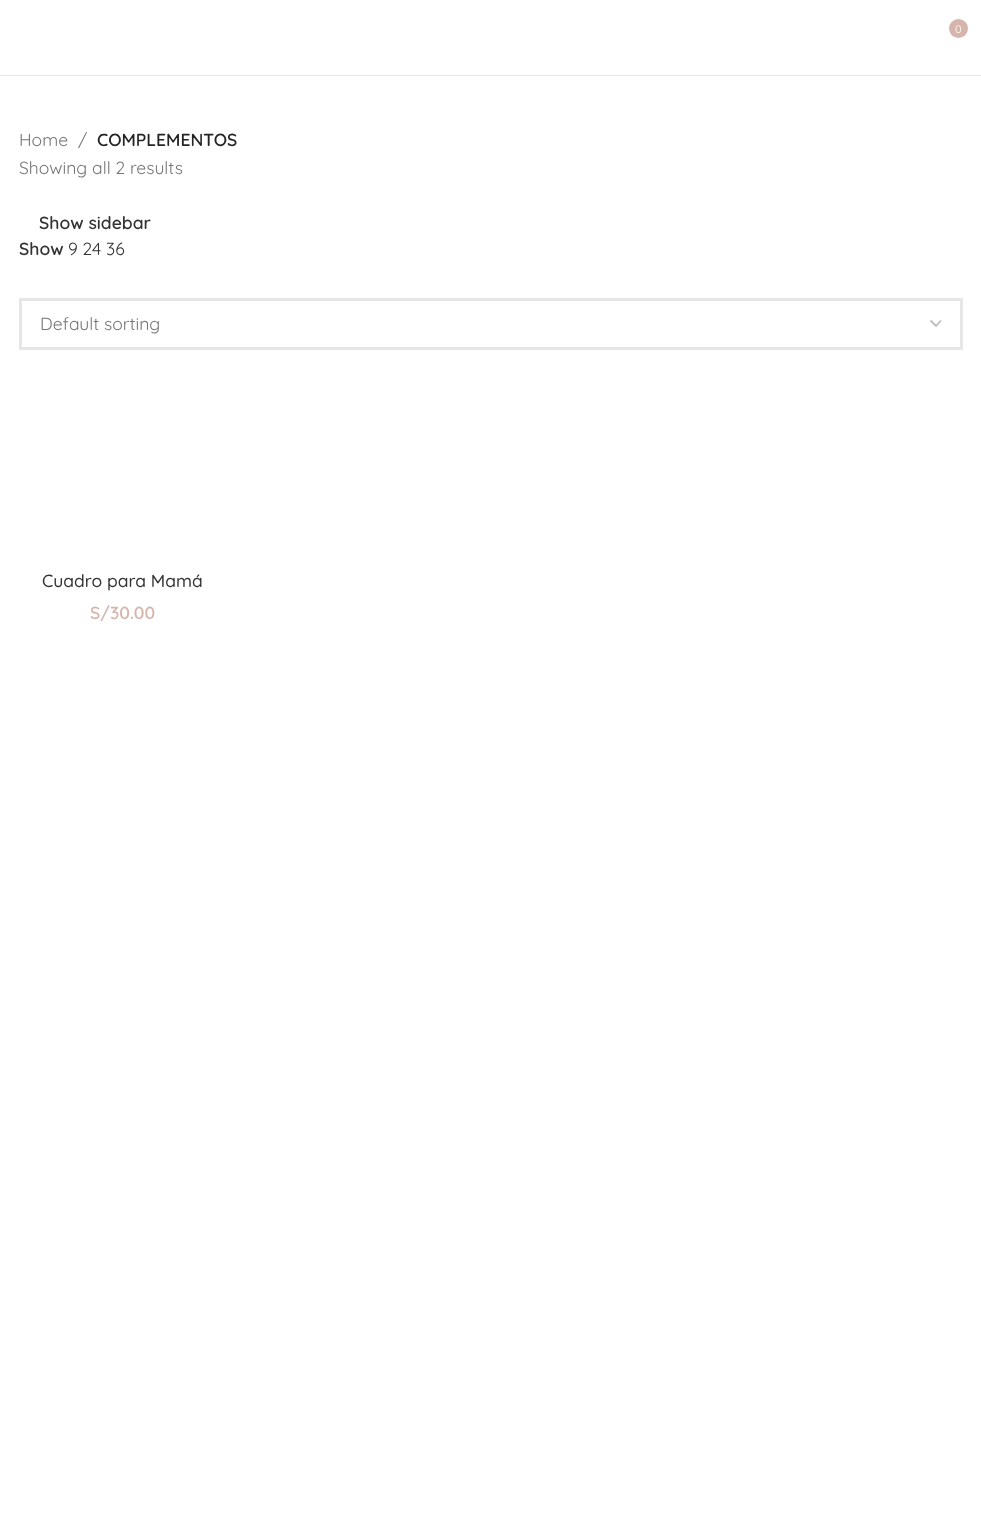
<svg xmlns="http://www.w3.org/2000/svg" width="981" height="1536">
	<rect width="100%" height="100%" fill="#FFFFFF" />
	<rect x="0" y="75" width="981" height="1" fill="#E6E6E6" />
	<circle cx="958.5" cy="28.5" r="9.5" fill="#D6B5AD" />
	<text x="955" y="33" font-family="Quicksand" font-size="11" fill="#FFFFFF">0</text>
	<g font-family="Quicksand" font-size="17.5" fill="#767676">
		<text x="19" y="146">Home</text>
		<text x="78" y="146">/</text>
	</g>
	<text x="97" y="146" font-family="Quicksand" font-size="17.5" font-weight="600" fill="#242424">COMPLEMENTOS</text>
	<text x="19" y="174" font-family="Quicksand" font-size="17.5" fill="#767676">Showing all 2 results</text>
	<g font-family="Quicksand" font-size="17.5" font-weight="600" fill="#333333">
		<text x="39" y="229">Show sidebar</text>
		<text x="19" y="255">Show</text>
	</g>
	<text x="68" y="255" font-family="Quicksand" font-size="17.5" fill="#333333">9 24 36</text>
	<path d="M930.5 320.5L936 326L941 320.5" fill="none" stroke="#BBBBBB" stroke-width="1.8" />
	<rect x="20.5" y="299.5" width="941" height="49" fill="none" stroke="#E6E6E6" stroke-width="3" />
	<text x="40" y="330" font-family="Quicksand" font-size="17.5" fill="#767676">Default sorting</text>
	<text x="42" y="587" font-family="Quicksand" font-size="17.5" font-weight="500" fill="#333333">Cuadro para Mamá</text>
	<text x="90" y="619" font-family="Quicksand" font-size="17.5" font-weight="600" fill="#D6B5AD">S/30.00</text>
</svg>
